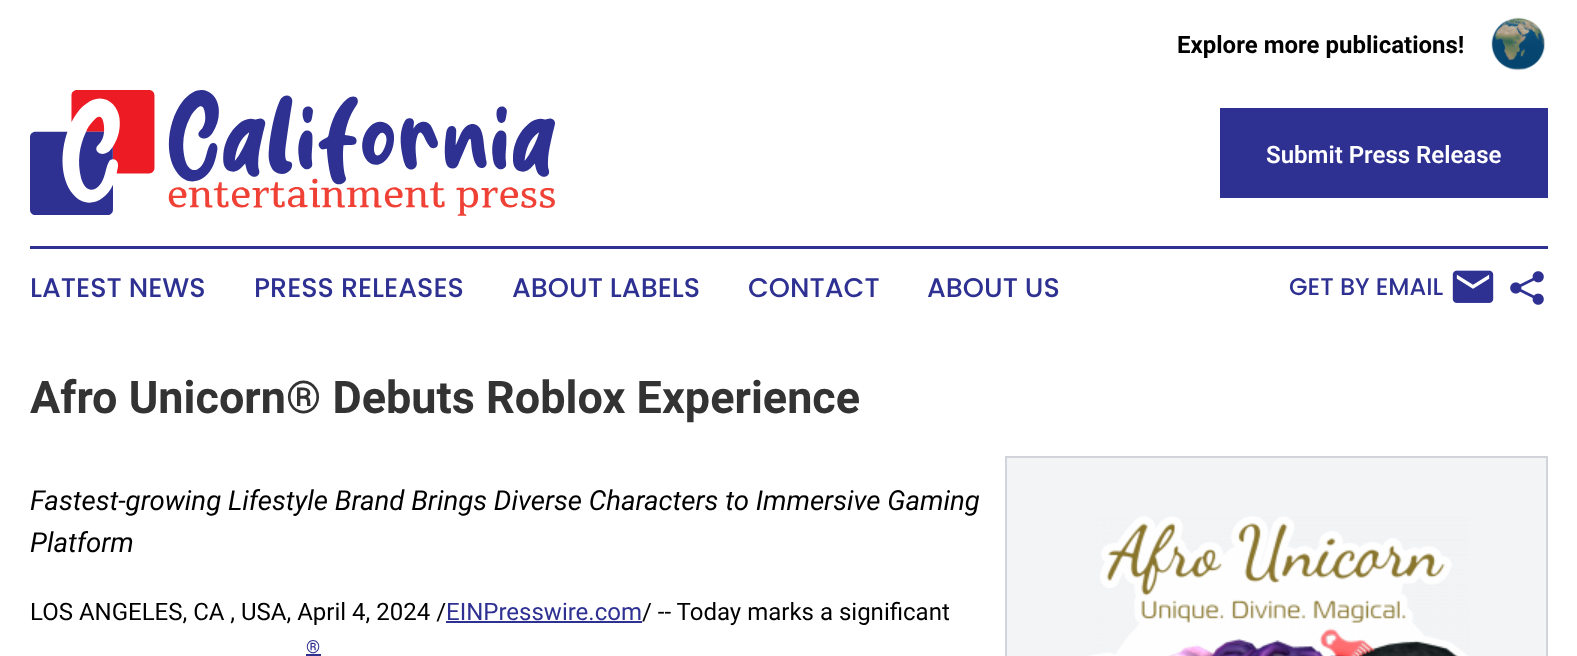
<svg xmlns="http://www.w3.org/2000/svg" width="1577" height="656">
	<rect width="100%" height="100%" fill="#FFFFFF" />
	<text x="1177" y="53" font-family="Roboto" font-size="24" font-weight="700" fill="#000000">Explore more publications!</text>
	<image x="1491" y="17" width="55" height="54" href="assets/img1.png" />
	<image x="30" y="90" width="525" height="126" href="assets/img2.png" />
	<rect x="1220" y="108" width="328" height="90" fill="#2E3192" />
	<text x="1266" y="163" font-family="Roboto" font-size="24" font-weight="600" fill="#FFFFFF">Submit Press Release</text>
	<rect x="30" y="246" width="1518" height="3" fill="#2E3192" />
	<g font-family="Poppins" font-size="27" font-weight="500" fill="#2E3192">
		<text x="30" y="297">LATEST NEWS</text>
		<text x="254" y="297">PRESS RELEASES</text>
		<text x="512" y="297">ABOUT LABELS</text>
		<text x="748" y="297">CONTACT</text>
		<text x="927" y="297">ABOUT US</text>
	</g>
	<text x="1289" y="295" font-family="Poppins" font-size="24" font-weight="500" fill="#2E3192">GET BY EMAIL</text>
	<image x="1452" y="270" width="42" height="33" href="assets/img3.png" />
	<image x="1510" y="271" width="34" height="34" href="assets/img4.png" />
	<text x="30" y="413" font-family="Roboto" font-size="45" font-weight="700" fill="#333333">Afro Unicorn® Debuts Roblox Experience</text>
	<g font-family="Roboto" font-size="27.6" font-style="italic" fill="#000000">
		<text x="30" y="510">Fastest-growing Lifestyle Brand Brings Diverse Characters to Immersive Gaming</text>
		<text x="30" y="552">Platform</text>
	</g>
	<rect x="1006" y="457" width="541" height="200" fill="#F3F4F6" stroke="#D1D5DB" stroke-width="2" />
	<image x="1089" y="516" width="380" height="140" href="assets/img5.png" />
	<text x="30" y="620" font-family="Roboto" font-size="24" fill="#000000">LOS ANGELES, CA , USA, April 4, 2024 /</text>
	<text x="446" y="620" font-family="Roboto" font-size="24" fill="#2E3192">EINPresswire.com</text>
	<rect x="446" y="621" width="196" height="2" fill="#2E3192" />
	<text x="642" y="620" font-family="Roboto" font-size="24" fill="#000000">/ -- Today marks a significant</text>
	<text x="306" y="653" font-family="Roboto" font-size="18" fill="#2E3192">®</text>
	<rect x="306" y="654" width="15" height="2" fill="#2E3192" />
</svg>
